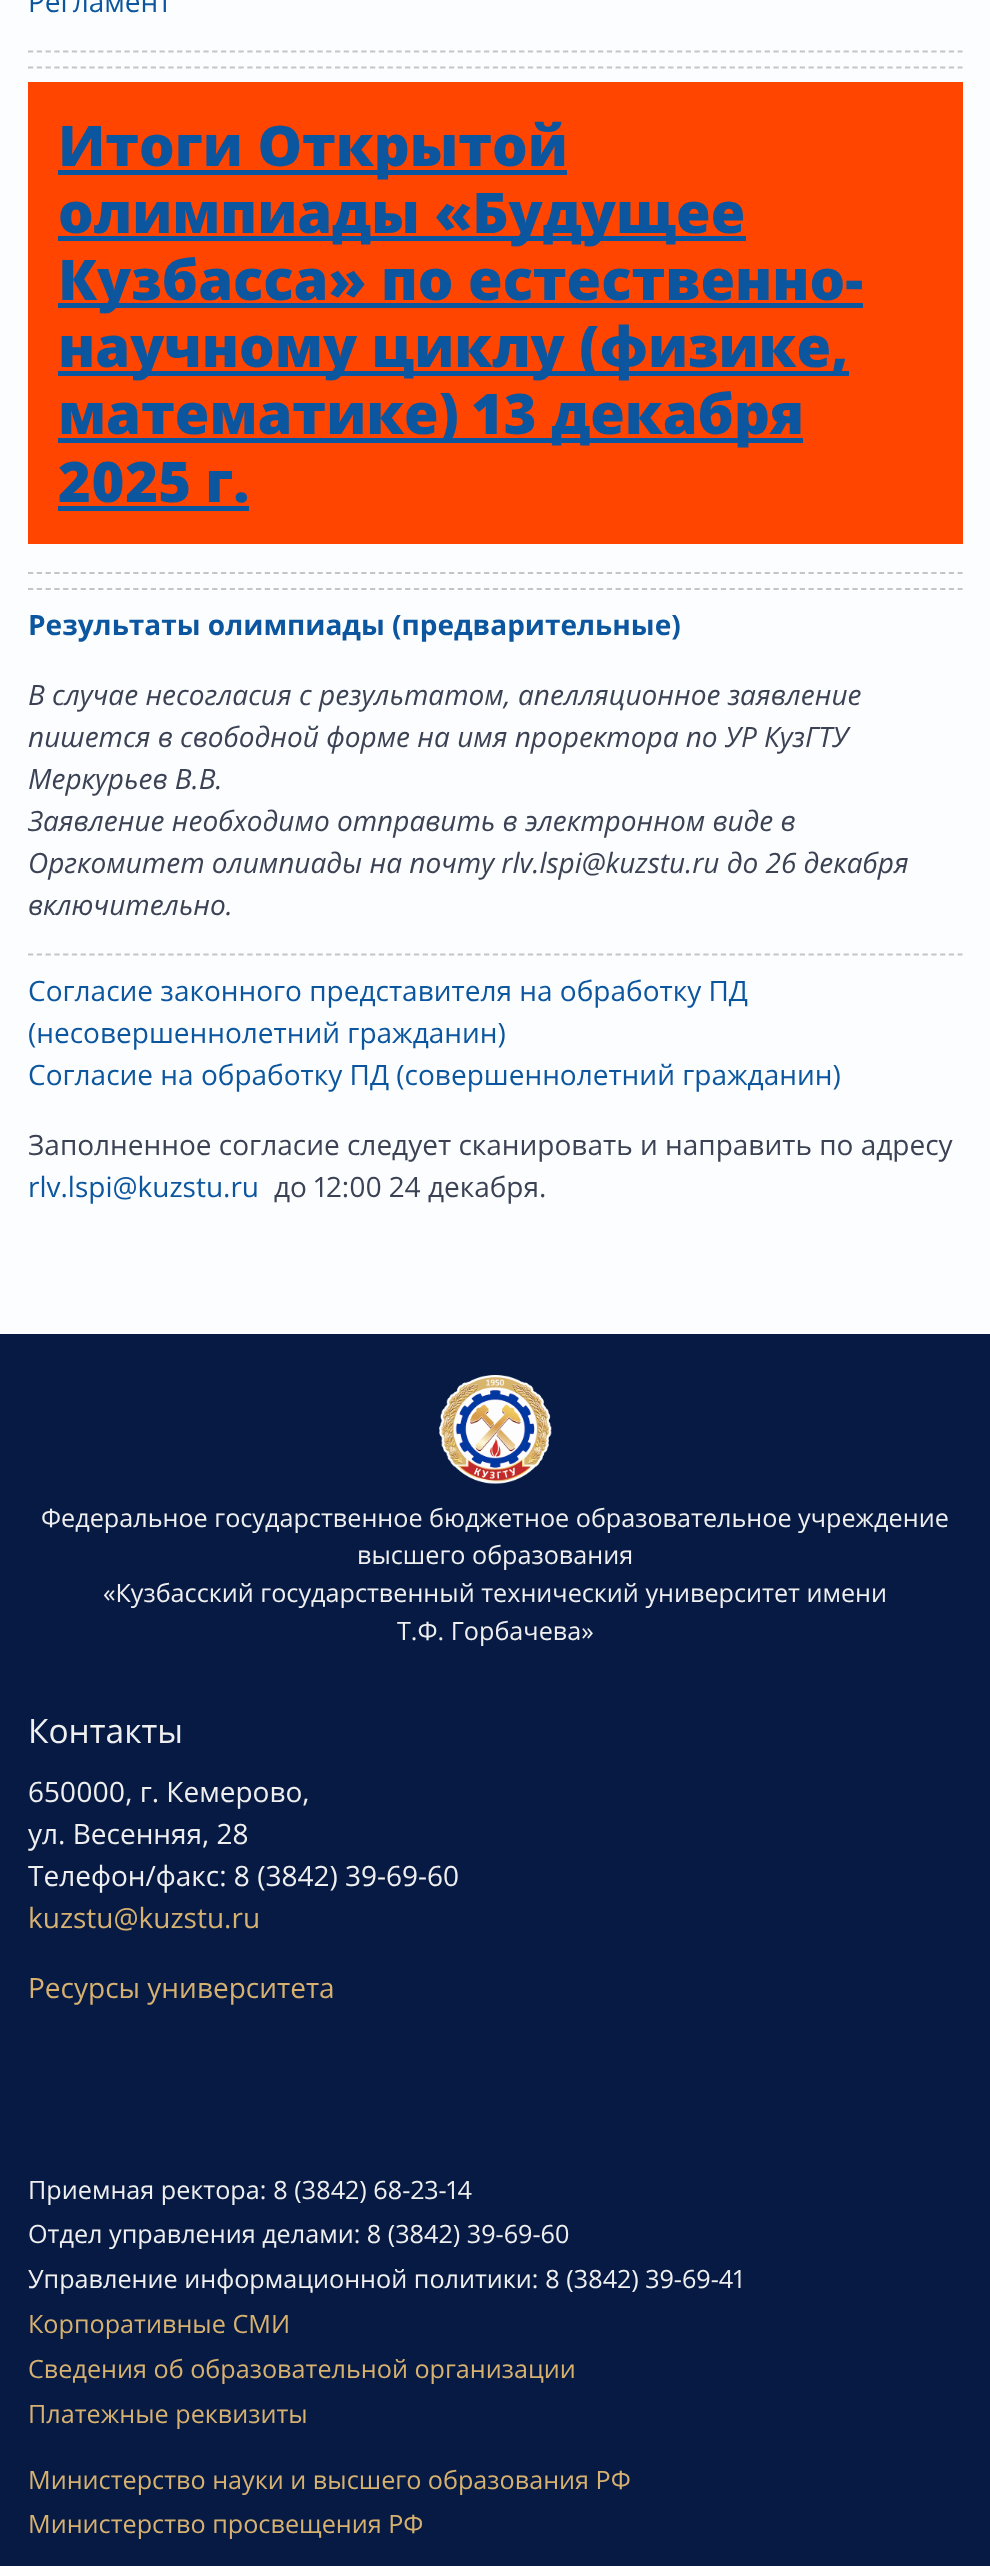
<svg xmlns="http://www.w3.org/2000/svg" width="990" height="2566">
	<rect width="100%" height="100%" fill="#FCFDFF" />
	<text x="28" y="12" font-family="Open Sans" font-size="28" fill="#0B569E">Регламент</text>
	<path d="M28 51.5H962.5" fill="none" stroke="#C5C5C5" stroke-width="1.8" stroke-dasharray="5.25 3.52" />
	<path d="M28 67.5H962.5" fill="none" stroke="#C5C5C5" stroke-width="1.8" stroke-dasharray="5.25 3.52" />
	<rect x="28" y="82" width="935" height="462" fill="#FF4500" />
	<rect x="58" y="170" width="509" height="5" fill="#0B569E" />
	<text x="58" y="166" font-family="Open Sans" font-size="56" font-weight="800" fill="#0B569E">Итоги Открытой</text>
	<rect x="58" y="236" width="688" height="5" fill="#0B569E" />
	<text x="58" y="233" font-family="Open Sans" font-size="56" font-weight="800" fill="#0B569E">олимпиады «Будущее</text>
	<rect x="58" y="303" width="805" height="5" fill="#0B569E" />
	<text x="58" y="300" font-family="Open Sans" font-size="56" font-weight="800" fill="#0B569E">Кузбасса» по естественно-</text>
	<rect x="58" y="371" width="791" height="5" fill="#0B569E" />
	<text x="58" y="367" font-family="Open Sans" font-size="56" font-weight="800" fill="#0B569E">научному циклу (физике,</text>
	<rect x="58" y="438" width="745" height="5" fill="#0B569E" />
	<g font-family="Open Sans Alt" font-size="56" font-weight="800" fill="#0B569E">
		<text x="58" y="434">математике) 13 декабря</text>
		<text x="58" y="502">2025 г.</text>
	</g>
	<rect x="58" y="506" width="191" height="5" fill="#0B569E" />
	<path d="M28 573H962.5" fill="none" stroke="#C5C5C5" stroke-width="1.8" stroke-dasharray="5.25 3.52" />
	<path d="M28 589H962.5" fill="none" stroke="#C5C5C5" stroke-width="1.8" stroke-dasharray="5.25 3.52" />
	<text x="28" y="635" font-family="Open Sans" font-size="28" font-weight="700" fill="#0B569E">Результаты олимпиады (предварительные)</text>
	<g font-family="Open Sans" font-size="28" font-style="italic" fill="#3B4254">
		<text x="28" y="705">В случае несогласия с результатом, апелляционное заявление</text>
		<text x="28" y="747">пишется в свободной форме на имя проректора по УР КузГТУ</text>
		<text x="28" y="789">Меркурьев В.В.</text>
		<text x="28" y="831">Заявление необходимо отправить в электронном виде в</text>
		<text x="28" y="873">Оргкомитет олимпиады на почту rlv.lspi@kuzstu.ru до 26 декабря</text>
		<text x="28" y="915">включительно.</text>
	</g>
	<path d="M28 954.5H962.5" fill="none" stroke="#C5C5C5" stroke-width="1.8" stroke-dasharray="5.25 3.52" />
	<g font-family="Open Sans" font-size="28" fill="#0B569E">
		<text x="28" y="1001">Согласие законного представителя на обработку ПД</text>
		<text x="28" y="1043">(несовершеннолетний гражданин)</text>
		<text x="28" y="1085">Согласие на обработку ПД (совершеннолетний гражданин)</text>
	</g>
	<text x="28" y="1155" font-family="Open Sans" font-size="28" fill="#3B4254">Заполненное согласие следует сканировать и направить по адресу</text>
	<text x="28" y="1197" font-family="Open Sans" font-size="28" fill="#0B569E">rlv.lspi@kuzstu.ru</text>
	<text x="274" y="1197" font-family="Open Sans Alt" font-size="28" fill="#3B4254">до 12:00 24 декабря.</text>
	<rect x="0" y="1334" width="990" height="1232" fill="#061A44" />
	<image x="439" y="1375" width="113" height="109" href="assets/img1.png" />
	<g font-family="Open Sans" font-size="25.2" fill="#EFEFEF">
		<text x="41" y="1527">Федеральное государственное бюджетное образовательное учреждение</text>
		<text x="357" y="1564">высшего образования</text>
		<text x="103" y="1602">«Кузбасский государственный технический университет имени</text>
		<text x="397" y="1640">Т.Ф. Горбачева»</text>
	</g>
	<text x="28" y="1743" font-family="Open Sans" font-size="33.5" fill="#EFEFEF">Контакты</text>
	<text x="28" y="1802" font-family="Open Sans Alt" font-size="28" fill="#EFEFEF">650000, г. Кемерово,</text>
	<g font-family="Open Sans" font-size="28" fill="#EFEFEF">
		<text x="28" y="1844">ул. Весенняя, 28</text>
		<text x="28" y="1886">Телефон/факс: 8 (3842) 39-69-60</text>
	</g>
	<g font-family="Open Sans" font-size="28" fill="#D7B16F">
		<text x="28" y="1928">kuzstu@kuzstu.ru</text>
		<text x="28" y="1998">Ресурсы университета</text>
	</g>
	<text x="28" y="2199" font-family="Open Sans Alt" font-size="25.2" fill="#EFEFEF">Приемная ректора: 8 (3842) 68-23-14</text>
	<text x="28" y="2243" font-family="Open Sans" font-size="25.2" fill="#EFEFEF">Отдел управления делами: 8 (3842) 39-69-60</text>
	<text x="28" y="2288" font-family="Open Sans Alt" font-size="25.2" fill="#EFEFEF">Управление информационной политики: 8 (3842) 39-69-41</text>
	<g font-family="Open Sans" font-size="25.2" fill="#D7B16F">
		<text x="28" y="2333">Корпоративные СМИ</text>
		<text x="28" y="2378">Сведения об образовательной организации</text>
		<text x="28" y="2423">Платежные реквизиты</text>
		<text x="28" y="2489">Министерство науки и высшего образования РФ</text>
		<text x="28" y="2533">Министерство просвещения РФ</text>
	</g>
</svg>
